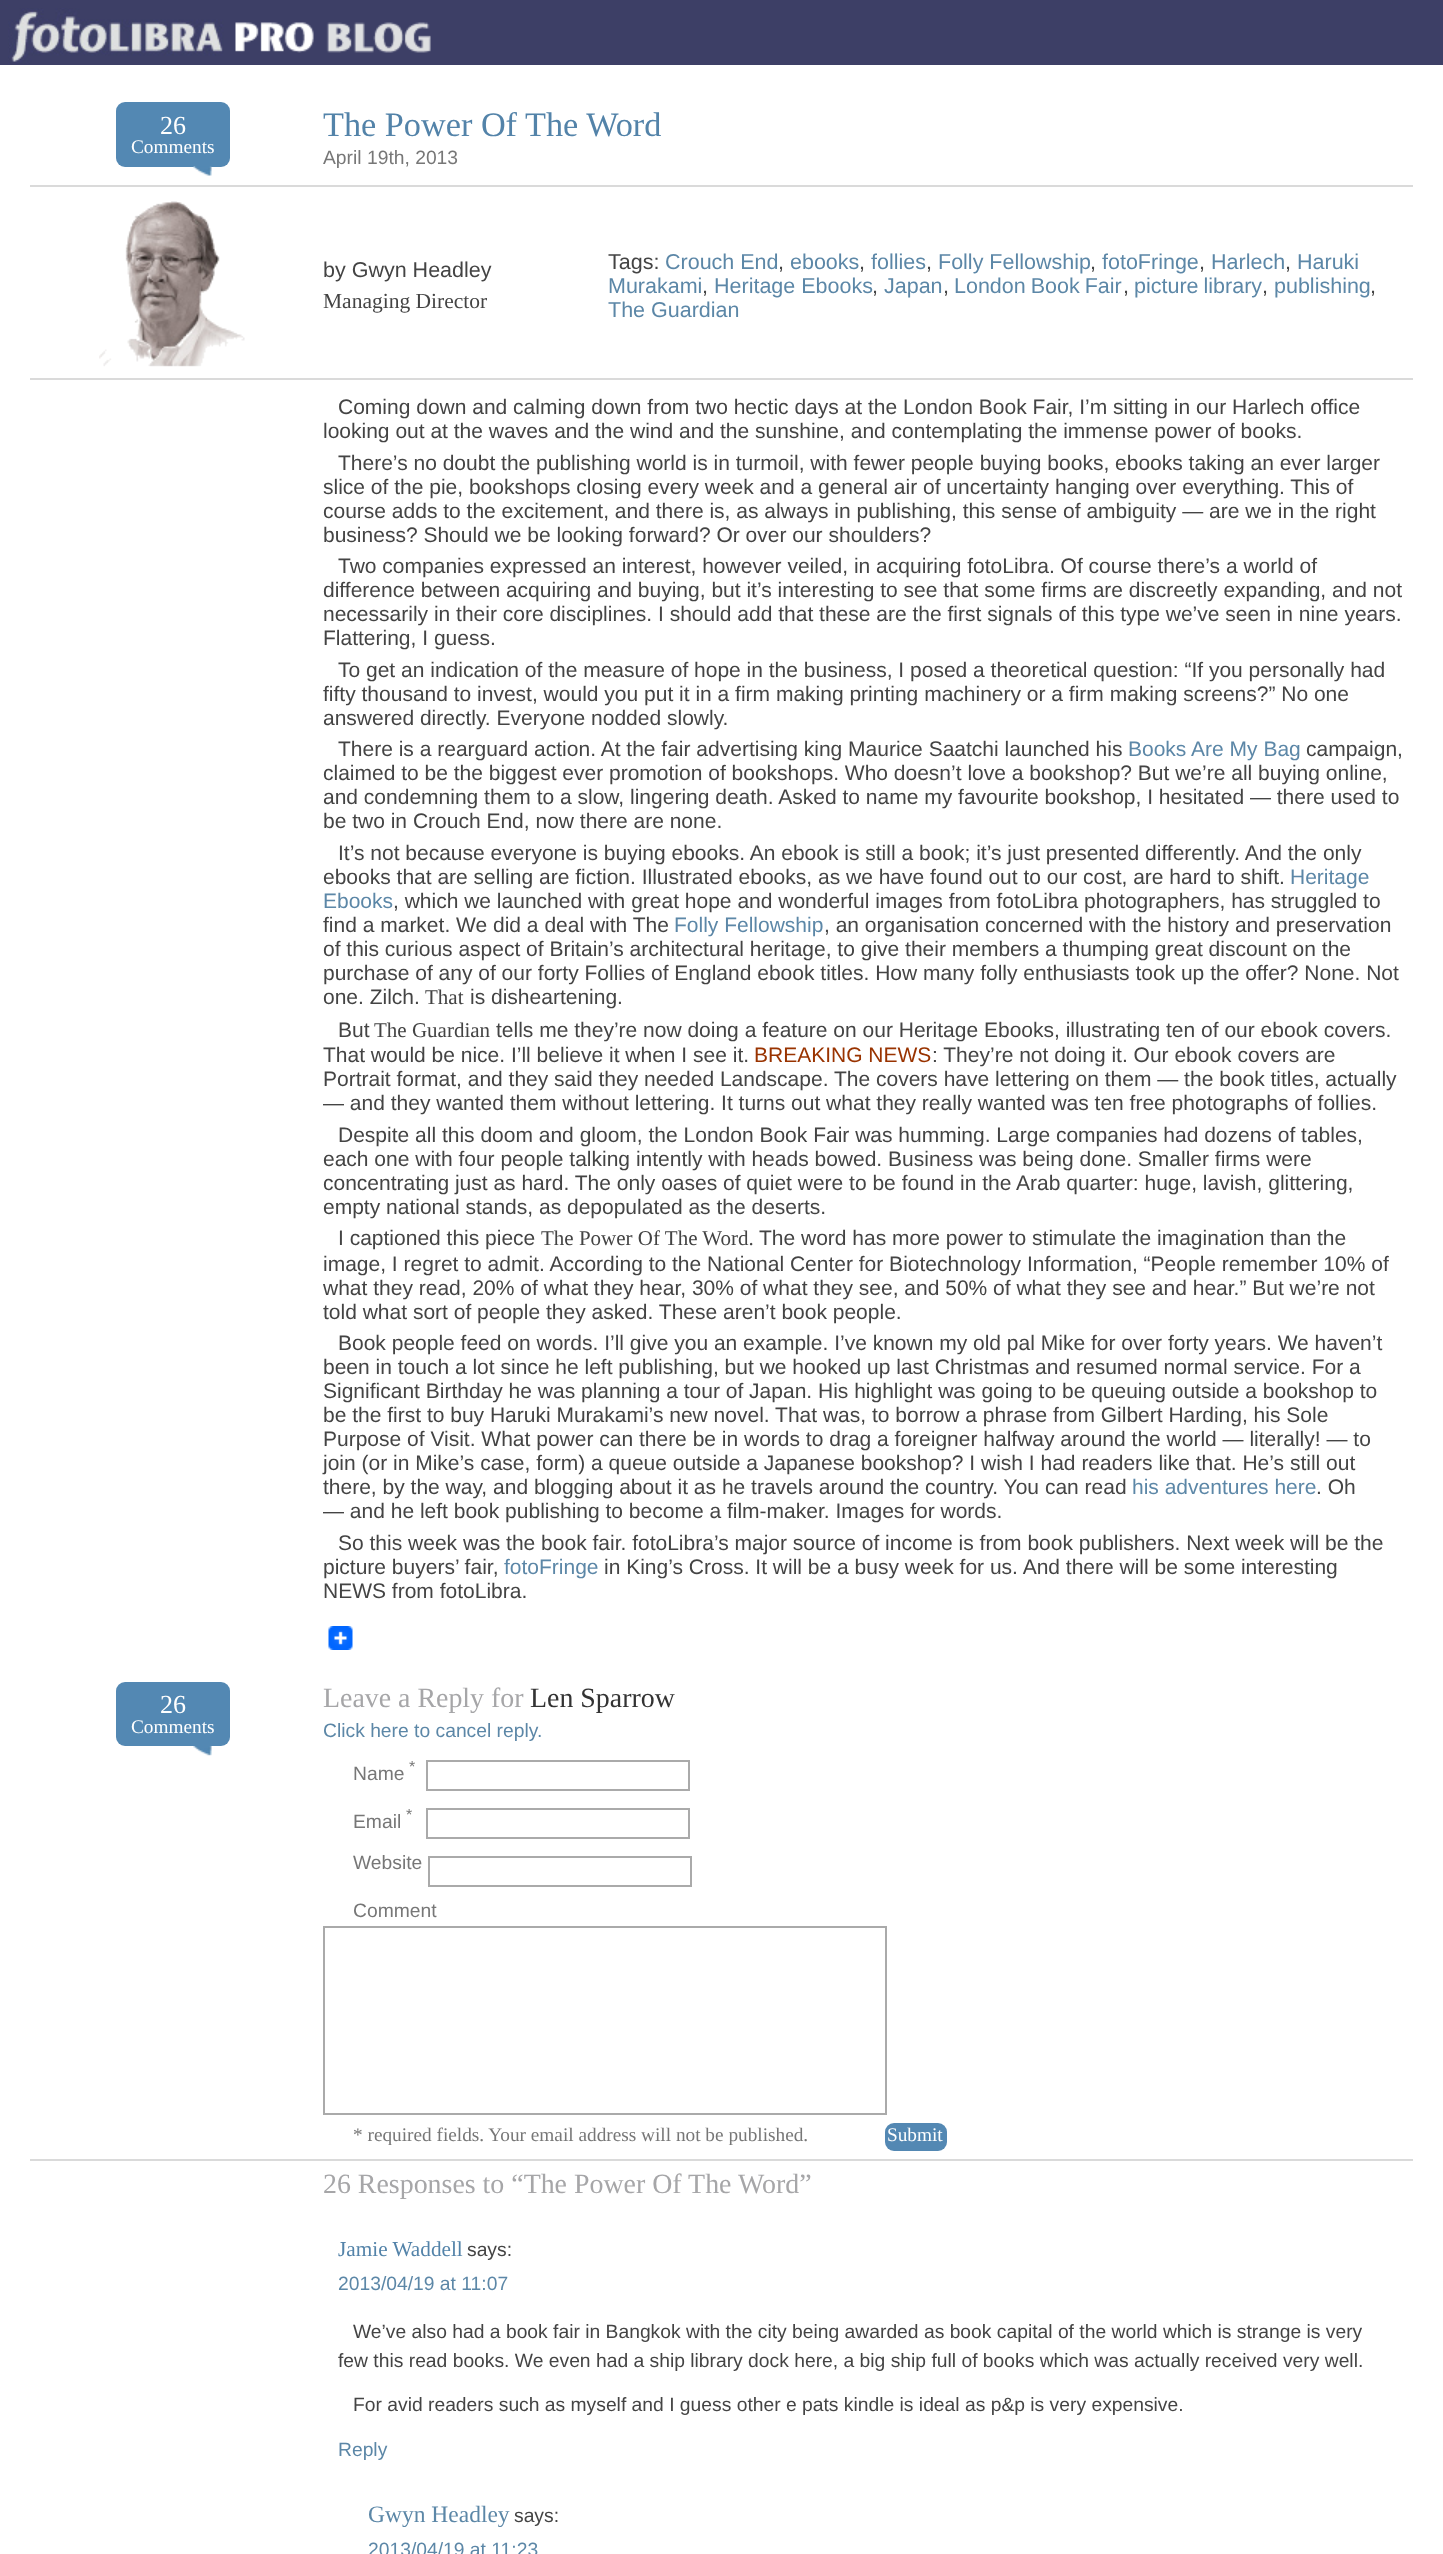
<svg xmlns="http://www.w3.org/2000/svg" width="1443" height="2554">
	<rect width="100%" height="100%" fill="#FFFFFF" />
	<rect x="0" y="0" width="1443" height="65" fill="#3D3F66" />
	<image x="8" y="8" width="423" height="56" href="assets/img1.png" />
	<rect x="30" y="185" width="1383" height="2" fill="#DADADA" />
	<rect x="116" y="102" width="114" height="65" rx="9" fill="#5388B3" />
	<text x="160" y="134" font-family="Liberation Serif" font-size="26" fill="#FFFFFF">26</text>
	<text x="131" y="153" font-family="Liberation Serif" font-size="19.3" fill="#FFFFFF">Comments</text>
	<image x="193" y="166" width="19" height="10" href="assets/img2.png" />
	<text x="323" y="136" font-family="Liberation Serif" font-size="34.25" fill="#5383A9">The Power Of The Word</text>
	<text x="323" y="164" font-family="Liberation Sans" font-size="19.3" fill="#777777">April 19th, 2013</text>
	<rect x="30" y="378" width="1383" height="2" fill="#DADADA" />
	<image x="99" y="201" width="146" height="166" href="assets/img3.png" />
	<text x="323" y="277" font-family="Liberation Sans" font-size="21.5" fill="#444444">by Gwyn Headley</text>
	<text x="323" y="308" font-family="Liberation Serif" font-size="21.5" fill="#444444">Managing Director</text>
	<text x="608" y="269" font-family="Liberation Sans" font-size="21.5" fill="#444444">Tags:</text>
	<text x="665" y="269" font-family="Liberation Sans" font-size="21.5" fill="#5C87A7">Crouch End</text>
	<text x="778" y="269" font-family="Liberation Sans" font-size="21.5" fill="#444444">,</text>
	<text x="790" y="269" font-family="Liberation Sans" font-size="21.5" fill="#5C87A7">ebooks</text>
	<text x="859" y="269" font-family="Liberation Sans" font-size="21.5" fill="#444444">,</text>
	<text x="871" y="269" font-family="Liberation Sans" font-size="21.5" fill="#5C87A7">follies</text>
	<text x="926" y="269" font-family="Liberation Sans" font-size="21.5" fill="#444444">,</text>
	<text x="938" y="269" font-family="Liberation Sans" font-size="21.5" fill="#5C87A7">Folly Fellowship</text>
	<text x="1090" y="269" font-family="Liberation Sans" font-size="21.5" fill="#444444">,</text>
	<text x="1102" y="269" font-family="Liberation Sans" font-size="21.5" fill="#5C87A7">fotoFringe</text>
	<text x="1199" y="269" font-family="Liberation Sans" font-size="21.5" fill="#444444">,</text>
	<text x="1211" y="269" font-family="Liberation Sans" font-size="21.5" fill="#5C87A7">Harlech</text>
	<text x="1285" y="269" font-family="Liberation Sans" font-size="21.5" fill="#444444">,</text>
	<g font-family="Liberation Sans" font-size="21.5" fill="#5C87A7">
		<text x="1297" y="269">Haruki</text>
		<text x="608" y="293">Murakami</text>
	</g>
	<text x="702" y="293" font-family="Liberation Sans" font-size="21.5" fill="#444444">,</text>
	<text x="714" y="293" font-family="Liberation Sans" font-size="21.5" fill="#5C87A7">Heritage Ebooks</text>
	<text x="872" y="293" font-family="Liberation Sans" font-size="21.5" fill="#444444">,</text>
	<text x="884" y="293" font-family="Liberation Sans" font-size="21.5" fill="#5C87A7">Japan</text>
	<text x="943" y="293" font-family="Liberation Sans" font-size="21.5" fill="#444444">,</text>
	<text x="954" y="293" word-spacing="-1" font-family="Liberation Sans" font-size="21.5" fill="#5C87A7">London Book Fair</text>
	<text x="1123" y="293" font-family="Liberation Sans" font-size="21.5" fill="#444444">,</text>
	<text x="1134" y="293" word-spacing="-1" font-family="Liberation Sans" font-size="21.5" fill="#5C87A7">picture library</text>
	<text x="1262" y="293" font-family="Liberation Sans" font-size="21.5" fill="#444444">,</text>
	<text x="1274" y="293" font-family="Liberation Sans" font-size="21.5" fill="#5C87A7">publishing</text>
	<text x="1370" y="293" font-family="Liberation Sans" font-size="21.5" fill="#444444">,</text>
	<text x="608" y="317" font-family="Liberation Sans" font-size="21.5" fill="#5C87A7">The Guardian</text>
	<g font-family="Liberation Sans" font-size="21" fill="#444444">
		<text x="338" y="414">Coming down and calming down from two hectic days at the London Book Fair, I’m sitting in our Harlech office</text>
		<text x="323" y="438">looking out at the waves and the wind and the sunshine, and contemplating the immense power of books.</text>
		<text x="338" y="470">There’s no doubt the publishing world is in turmoil, with fewer people buying books, ebooks taking an ever larger</text>
		<text x="323" y="494">slice of the pie, bookshops closing every week and a general air of uncertainty hanging over everything. This of</text>
		<text x="323" y="518">course adds to the excitement, and there is, as always in publishing, this sense of ambiguity — are we in the right</text>
		<text x="323" y="542">business? Should we be looking forward? Or over our shoulders?</text>
		<text x="338" y="573">Two companies expressed an interest, however veiled, in acquiring fotoLibra. Of course there’s a world of</text>
		<text x="323" y="597">difference between acquiring and buying, but it’s interesting to see that some firms are discreetly expanding, and not</text>
		<text x="323" y="621">necessarily in their core disciplines. I should add that these are the first signals of this type we’ve seen in nine years.</text>
		<text x="323" y="645">Flattering, I guess.</text>
		<text x="338" y="677">To get an indication of the measure of hope in the business, I posed a theoretical question: “If you personally had</text>
		<text x="323" y="701">fifty thousand to invest, would you put it in a firm making printing machinery or a firm making screens?” No one</text>
		<text x="323" y="725">answered directly. Everyone nodded slowly.</text>
		<text x="338" y="756">There is a rearguard action. At the fair advertising king Maurice Saatchi launched his</text>
	</g>
	<text x="1128" y="756" font-family="Liberation Sans" font-size="21" fill="#5C87A7">Books Are My Bag</text>
	<g font-family="Liberation Sans" font-size="21" fill="#444444">
		<text x="1306" y="756">campaign,</text>
		<text x="323" y="780">claimed to be the biggest ever promotion of bookshops. Who doesn’t love a bookshop? But we’re all buying online,</text>
		<text x="323" y="804">and condemning them to a slow, lingering death. Asked to name my favourite bookshop, I hesitated — there used to</text>
		<text x="323" y="828">be two in Crouch End, now there are none.</text>
		<text x="338" y="860">It’s not because everyone is buying ebooks. An ebook is still a book; it’s just presented differently. And the only</text>
		<text x="323" y="884">ebooks that are selling are fiction. Illustrated ebooks, as we have found out to our cost, are hard to shift.</text>
	</g>
	<g font-family="Liberation Sans" font-size="21" fill="#5C87A7">
		<text x="1290" y="884">Heritage</text>
		<text x="323" y="908">Ebooks</text>
	</g>
	<g font-family="Liberation Sans" font-size="21" fill="#444444">
		<text x="393" y="908">, which we launched with great hope and wonderful images from fotoLibra photographers, has struggled to</text>
		<text x="323" y="932">find a market. We did a deal with The</text>
	</g>
	<text x="674" y="932" font-family="Liberation Sans" font-size="21" fill="#5C87A7">Folly Fellowship</text>
	<g font-family="Liberation Sans" font-size="21" fill="#444444">
		<text x="824" y="932">, an organisation concerned with the history and preservation</text>
		<text x="323" y="956">of this curious aspect of Britain’s architectural heritage, to give their members a thumping great discount on the</text>
		<text x="323" y="980">purchase of any of our forty Follies of England ebook titles. How many folly enthusiasts took up the offer? None. Not</text>
		<text x="323" y="1004">one. Zilch.</text>
	</g>
	<text x="425" y="1004" font-family="Liberation Serif" font-size="21" fill="#444444">That</text>
	<g font-family="Liberation Sans" font-size="21" fill="#444444">
		<text x="470" y="1004">is disheartening.</text>
		<text x="338" y="1037">But</text>
	</g>
	<text x="374" y="1037" font-family="Liberation Serif" font-size="21" fill="#444444">The Guardian</text>
	<g font-family="Liberation Sans" font-size="21" fill="#444444">
		<text x="496" y="1037">tells me they’re now doing a feature on our Heritage Ebooks, illustrating ten of our ebook covers.</text>
		<text x="323" y="1062">That would be nice. I’ll believe it when I see it.</text>
	</g>
	<text x="754" y="1062" font-family="Liberation Sans" font-size="21" fill="#993300">BREAKING NEWS</text>
	<g font-family="Liberation Sans" font-size="21" fill="#444444">
		<text x="932" y="1062">: They’re not doing it. Our ebook covers are</text>
		<text x="323" y="1086">Portrait format, and they said they needed Landscape. The covers have lettering on them — the book titles, actually</text>
		<text x="323" y="1110">— and they wanted them without lettering. It turns out what they really wanted was ten free photographs of follies.</text>
		<text x="338" y="1142">Despite all this doom and gloom, the London Book Fair was humming. Large companies had dozens of tables,</text>
		<text x="323" y="1166">each one with four people talking intently with heads bowed. Business was being done. Smaller firms were</text>
		<text x="323" y="1190">concentrating just as hard. The only oases of quiet were to be found in the Arab quarter: huge, lavish, glittering,</text>
		<text x="323" y="1214">empty national stands, as depopulated as the deserts.</text>
		<text x="338" y="1245">I captioned this piece</text>
	</g>
	<text x="541" y="1245" font-family="Liberation Serif" font-size="21" fill="#444444">The Power Of The Word.</text>
	<g font-family="Liberation Sans" font-size="21" fill="#444444">
		<text x="759" y="1245">The word has more power to stimulate the imagination than the</text>
		<text x="323" y="1271">image, I regret to admit. According to the National Center for Biotechnology Information, “People remember 10% of</text>
		<text x="323" y="1295">what they read, 20% of what they hear, 30% of what they see, and 50% of what they see and hear.” But we’re not</text>
		<text x="323" y="1319">told what sort of people they asked. These aren’t book people.</text>
		<text x="338" y="1350">Book people feed on words. I’ll give you an example. I’ve known my old pal Mike for over forty years. We haven’t</text>
		<text x="323" y="1374">been in touch a lot since he left publishing, but we hooked up last Christmas and resumed normal service. For a</text>
		<text x="323" y="1398">Significant Birthday he was planning a tour of Japan. His highlight was going to be queuing outside a bookshop to</text>
		<text x="323" y="1422">be the first to buy Haruki Murakami’s new novel. That was, to borrow a phrase from Gilbert Harding, his Sole</text>
		<text x="323" y="1446">Purpose of Visit. What power can there be in words to drag a foreigner halfway around the world — literally! — to</text>
		<text x="323" y="1470">join (or in Mike’s case, form) a queue outside a Japanese bookshop? I wish I had readers like that. He’s still out</text>
		<text x="323" y="1494">there, by the way, and blogging about it as he travels around the country. You can read</text>
	</g>
	<text x="1132" y="1494" font-family="Liberation Sans" font-size="21" fill="#5C87A7">his adventures here</text>
	<g font-family="Liberation Sans" font-size="21" fill="#444444">
		<text x="1316" y="1494">. Oh</text>
		<text x="323" y="1518">— and he left book publishing to become a film-maker. Images for words.</text>
		<text x="338" y="1550">So this week was the book fair. fotoLibra’s major source of income is from book publishers. Next week will be the</text>
		<text x="323" y="1574">picture buyers’ fair,</text>
	</g>
	<text x="504" y="1574" font-family="Liberation Sans" font-size="21" fill="#5C87A7">fotoFringe</text>
	<g font-family="Liberation Sans" font-size="21" fill="#444444">
		<text x="604" y="1574">in King’s Cross. It will be a busy week for us. And there will be some interesting</text>
		<text x="323" y="1598">NEWS from fotoLibra.</text>
	</g>
	<image x="328" y="1626" width="25" height="24" href="assets/img4.png" />
	<rect x="30" y="2159" width="1383" height="2" fill="#DADADA" />
	<rect x="116" y="1682" width="114" height="64" rx="9" fill="#5388B3" />
	<text x="160" y="1713" font-family="Liberation Serif" font-size="26" fill="#FFFFFF">26</text>
	<text x="131" y="1733" font-family="Liberation Serif" font-size="19.3" fill="#FFFFFF">Comments</text>
	<image x="193" y="1746" width="19" height="10" href="assets/img5.png" />
	<text x="323" y="1707" font-family="Liberation Serif" font-size="27.9" fill="#A6A6A8">Leave a Reply for</text>
	<text x="530" y="1707" font-family="Liberation Serif" font-size="27.9" fill="#333333">Len Sparrow</text>
	<text x="323" y="1737" font-family="Liberation Sans" font-size="19.3" fill="#5C87A7">Click here to cancel reply.</text>
	<text x="409" y="1772" font-family="Liberation Sans" font-size="16" fill="#777777">*</text>
	<text x="353" y="1780" font-family="Liberation Sans" font-size="19.3" fill="#777777">Name</text>
	<rect x="427" y="1761" width="262" height="29" fill="none" stroke="#AAAAAA" stroke-width="2" />
	<text x="406" y="1820" font-family="Liberation Sans" font-size="16" fill="#777777">*</text>
	<text x="353" y="1828" font-family="Liberation Sans" font-size="19.3" fill="#777777">Email</text>
	<rect x="427" y="1809" width="262" height="29" fill="none" stroke="#AAAAAA" stroke-width="2" />
	<text x="353" y="1869" font-family="Liberation Sans" font-size="19.3" fill="#777777">Website</text>
	<rect x="429" y="1857" width="262" height="29" fill="none" stroke="#AAAAAA" stroke-width="2" />
	<text x="353" y="1917" font-family="Liberation Sans" font-size="19.3" fill="#777777">Comment</text>
	<rect x="324" y="1927" width="562" height="187" fill="none" stroke="#AAAAAA" stroke-width="2" />
	<text x="353" y="2141" font-family="Liberation Serif" font-size="19.3" fill="#777777">* required fields. Your email address will not be published.</text>
	<rect x="885" y="2123" width="62" height="28" rx="9" fill="#5388B3" />
	<text x="887" y="2141" font-family="Liberation Serif" font-size="19.3" fill="#FFFFFF">Submit</text>
	<text x="323" y="2193" font-family="Liberation Serif" font-size="27.9" fill="#A6A6A8">26 Responses to “The Power Of The Word”</text>
	<text x="338" y="2256" font-family="Liberation Serif" font-size="21.25" fill="#5383A9">Jamie Waddell</text>
	<text x="467" y="2256" font-family="Liberation Sans" font-size="19.3" fill="#444444">says:</text>
	<text x="338" y="2290" font-family="Liberation Sans" font-size="19.3" fill="#5C87A7">2013/04/19 at 11:07</text>
	<g font-family="Liberation Sans" font-size="19.3" fill="#444444">
		<text x="353" y="2338">We’ve also had a book fair in Bangkok with the city being awarded as book capital of the world which is strange is very</text>
		<text x="338" y="2367">few this read books. We even had a ship library dock here, a big ship full of books which was actually received very well.</text>
		<text x="353" y="2411">For avid readers such as myself and I guess other e pats kindle is ideal as p&amp;p is very expensive.</text>
	</g>
	<text x="338" y="2456" font-family="Liberation Sans" font-size="19.3" fill="#5C87A7">Reply</text>
	<text x="368" y="2522" font-family="Liberation Serif" font-size="23.5" fill="#5C87A7">Gwyn Headley</text>
	<text x="514" y="2522" font-family="Liberation Sans" font-size="19.3" fill="#444444">says:</text>
	<text x="368" y="2556" font-family="Liberation Sans" font-size="19.3" fill="#5C87A7">2013/04/19 at 11:23</text>
</svg>
